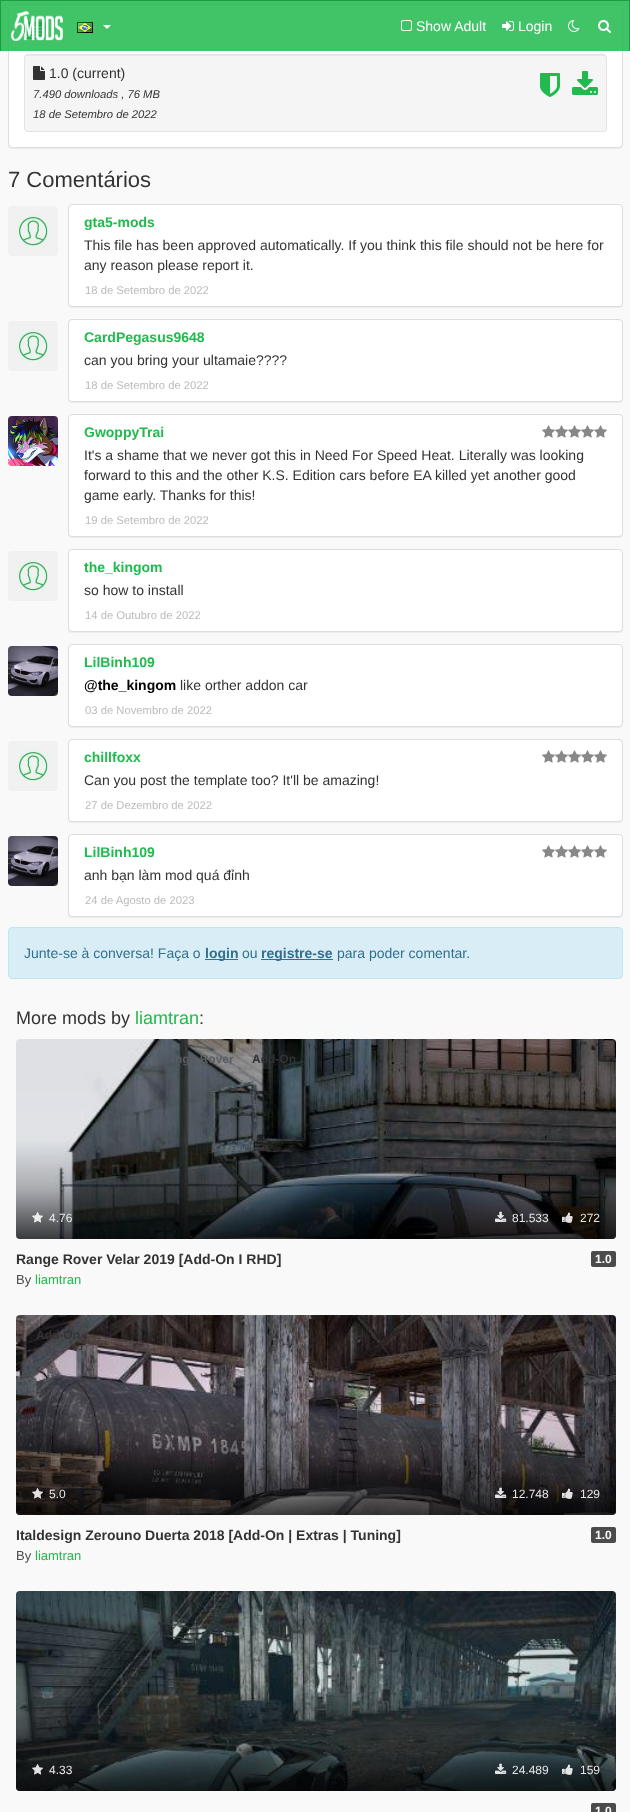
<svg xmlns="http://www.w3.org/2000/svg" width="630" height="1812">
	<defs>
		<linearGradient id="g1" gradientUnits="userSpaceOnUse" x1="316" y1="1039" x2="316" y2="1239"><stop offset="0.5" stop-color="#000000" stop-opacity="0" /><stop offset="0.75" stop-color="#000000" stop-opacity="0.25" /><stop offset="1" stop-color="#000000" stop-opacity="0.75" /></linearGradient>
		<linearGradient id="g2" gradientUnits="userSpaceOnUse" x1="316" y1="1315" x2="316" y2="1515"><stop offset="0.5" stop-color="#000000" stop-opacity="0" /><stop offset="0.75" stop-color="#000000" stop-opacity="0.25" /><stop offset="1" stop-color="#000000" stop-opacity="0.75" /></linearGradient>
		<linearGradient id="g3" gradientUnits="userSpaceOnUse" x1="316" y1="1591" x2="316" y2="1791"><stop offset="0.5" stop-color="#000000" stop-opacity="0" /><stop offset="0.75" stop-color="#000000" stop-opacity="0.25" /><stop offset="1" stop-color="#000000" stop-opacity="0.75" /></linearGradient>
	</defs>
	<rect width="100%" height="100%" fill="#F9F9F9" />
	<rect x="8" y="5" width="615" height="144" rx="4" fill="#000000" fill-opacity="0.05" filter="blur(0.5px)" />
	<rect x="8.5" y="4.5" width="614" height="143" rx="3.5" fill="#FFFFFF" stroke="#DDDDDD" />
	<image x="24" y="21" width="22" height="18" href="assets/img7.png" />
	<rect x="1" y="1" width="628" height="50" fill="#20BA4E" fill-opacity="0.85" />
	<rect x="0" y="0" width="630" height="1" fill="#1B9E42" />
	<rect x="629" y="0" width="1" height="51" fill="#1B9E42" />
	<rect x="0" y="0" width="1" height="51" fill="#1B9E42" />
	<image x="11" y="11" width="52" height="30" href="assets/img1.png" />
	<image x="77" y="22" width="16" height="11" href="assets/img2.png" />
	<path d="M103 25H111L107 29Z" fill="#FFFFFF" />
	<image x="401" y="20" width="11" height="11" href="assets/img3.png" />
	<text x="416" y="31" font-family="Liberation Sans" font-size="14" fill="#FFFFFF">Show Adult</text>
	<image x="502" y="21" width="12" height="10" href="assets/img4.png" />
	<text x="518" y="31" font-family="Liberation Sans" font-size="14" fill="#FFFFFF">Login</text>
	<image x="568" y="20" width="12" height="12" href="assets/img5.png" />
	<image x="598" y="20" width="13" height="13" href="assets/img6.png" />
	<rect x="24" y="54" width="583" height="78" rx="4" fill="#F5F5F5" />
	<path d="M28 56H603C605 56 606 57 606 59V58C606 56 605 55 603 55H28C26 55 25 56 25 58V59C25 57 26 56 28 56Z" fill="#E9E9E9" />
	<rect x="24.5" y="54.5" width="582" height="77" rx="3.5" fill="none" stroke="#E3E3E3" />
	<image x="33" y="66" width="12" height="14" href="assets/img8.png" />
	<text x="49" y="78" font-family="Liberation Sans" font-size="14" fill="#333333">1.0 (current)</text>
	<g font-family="Liberation Sans" font-size="11.25" font-style="italic" fill="#333333">
		<text x="33" y="98">7.490 downloads , 76 MB</text>
		<text x="33" y="118">18 de Setembro de 2022</text>
	</g>
	<image x="540" y="73" width="20" height="24" href="assets/img9.png" />
	<image x="572" y="71" width="26" height="24" href="assets/img10.png" />
	<text x="8" y="187" font-family="Liberation Sans" font-size="22" fill="#333333">7 Comentários</text>
	<image x="8" y="206" width="50" height="50" href="assets/img11.png" />
	<rect x="68" y="205" width="555" height="103" rx="4" fill="#000000" fill-opacity="0.05" filter="blur(0.5px)" />
	<rect x="68.5" y="204.5" width="554" height="102" rx="3.5" fill="#FFFFFF" stroke="#DDDDDD" />
	<text x="84" y="227" font-family="Liberation Sans" font-size="14" font-weight="700" fill="#20BA4E">gta5-mods</text>
	<g font-family="Liberation Sans" font-size="14" fill="#333333">
		<text x="84" y="250">This file has been approved automatically. If you think this file should not be here for</text>
		<text x="84" y="270">any reason please report it.</text>
	</g>
	<text x="85" y="294" font-family="Liberation Sans" font-size="11.25" fill="#BBBBBB">18 de Setembro de 2022</text>
	<image x="8" y="321" width="50" height="50" href="assets/img11.png" />
	<rect x="68" y="320" width="555" height="83" rx="4" fill="#000000" fill-opacity="0.05" filter="blur(0.5px)" />
	<rect x="68.5" y="319.5" width="554" height="82" rx="3.5" fill="#FFFFFF" stroke="#DDDDDD" />
	<text x="84" y="342" font-family="Liberation Sans" font-size="14" font-weight="700" fill="#20BA4E">CardPegasus9648</text>
	<text x="84" y="365" font-family="Liberation Sans" font-size="14" fill="#333333">can you bring your ultamaie????</text>
	<text x="85" y="389" font-family="Liberation Sans" font-size="11.25" fill="#BBBBBB">18 de Setembro de 2022</text>
	<image x="8" y="416" width="50" height="50" href="assets/img12.png" />
	<rect x="68" y="415" width="555" height="123" rx="4" fill="#000000" fill-opacity="0.05" filter="blur(0.5px)" />
	<rect x="68.5" y="414.5" width="554" height="122" rx="3.5" fill="#FFFFFF" stroke="#DDDDDD" />
	<text x="84" y="437" font-family="Liberation Sans" font-size="14" font-weight="700" fill="#20BA4E">GwoppyTrai</text>
	<image x="542" y="425" width="13" height="13" href="assets/img13.png" />
	<image x="555" y="425" width="13" height="13" href="assets/img13.png" />
	<image x="568" y="425" width="13" height="13" href="assets/img13.png" />
	<image x="581" y="425" width="13" height="13" href="assets/img13.png" />
	<image x="594" y="425" width="13" height="13" href="assets/img13.png" />
	<g font-family="Liberation Sans" font-size="14" fill="#333333">
		<text x="84" y="460">It's a shame that we never got this in Need For Speed Heat. Literally was looking</text>
		<text x="84" y="480">forward to this and the other K.S. Edition cars before EA killed yet another good</text>
		<text x="84" y="500">game early. Thanks for this!</text>
	</g>
	<text x="85" y="524" font-family="Liberation Sans" font-size="11.25" fill="#BBBBBB">19 de Setembro de 2022</text>
	<image x="8" y="551" width="50" height="50" href="assets/img11.png" />
	<rect x="68" y="550" width="555" height="83" rx="4" fill="#000000" fill-opacity="0.05" filter="blur(0.5px)" />
	<rect x="68.5" y="549.5" width="554" height="82" rx="3.5" fill="#FFFFFF" stroke="#DDDDDD" />
	<text x="84" y="572" font-family="Liberation Sans" font-size="14" font-weight="700" fill="#20BA4E">the_kingom</text>
	<text x="84" y="595" font-family="Liberation Sans" font-size="14" fill="#333333">so how to install</text>
	<text x="85" y="619" font-family="Liberation Sans" font-size="11.25" fill="#BBBBBB">14 de Outubro de 2022</text>
	<image x="8" y="646" width="50" height="50" href="assets/img14.png" />
	<rect x="68" y="645" width="555" height="83" rx="4" fill="#000000" fill-opacity="0.05" filter="blur(0.5px)" />
	<rect x="68.5" y="644.5" width="554" height="82" rx="3.5" fill="#FFFFFF" stroke="#DDDDDD" />
	<text x="84" y="667" font-family="Liberation Sans" font-size="14" font-weight="700" fill="#20BA4E">LilBinh109</text>
	<text x="84" y="690" font-family="Liberation Sans" font-size="14" font-weight="700" fill="#000000">@the_kingom</text>
	<text x="180" y="690" font-family="Liberation Sans" font-size="14" fill="#333333">like orther addon car</text>
	<text x="85" y="714" font-family="Liberation Sans" font-size="11.25" fill="#BBBBBB">03 de Novembro de 2022</text>
	<image x="8" y="741" width="50" height="50" href="assets/img11.png" />
	<rect x="68" y="740" width="555" height="83" rx="4" fill="#000000" fill-opacity="0.05" filter="blur(0.5px)" />
	<rect x="68.5" y="739.5" width="554" height="82" rx="3.5" fill="#FFFFFF" stroke="#DDDDDD" />
	<text x="84" y="762" font-family="Liberation Sans" font-size="14" font-weight="700" fill="#20BA4E">chillfoxx</text>
	<image x="542" y="750" width="13" height="13" href="assets/img13.png" />
	<image x="555" y="750" width="13" height="13" href="assets/img13.png" />
	<image x="568" y="750" width="13" height="13" href="assets/img13.png" />
	<image x="581" y="750" width="13" height="13" href="assets/img13.png" />
	<image x="594" y="750" width="13" height="13" href="assets/img13.png" />
	<text x="84" y="785" font-family="Liberation Sans" font-size="14" fill="#333333">Can you post the template too? It'll be amazing!</text>
	<text x="85" y="809" font-family="Liberation Sans" font-size="11.25" fill="#BBBBBB">27 de Dezembro de 2022</text>
	<image x="8" y="836" width="50" height="50" href="assets/img14.png" />
	<rect x="68" y="835" width="555" height="83" rx="4" fill="#000000" fill-opacity="0.05" filter="blur(0.5px)" />
	<rect x="68.5" y="834.5" width="554" height="82" rx="3.5" fill="#FFFFFF" stroke="#DDDDDD" />
	<text x="84" y="857" font-family="Liberation Sans" font-size="14" font-weight="700" fill="#20BA4E">LilBinh109</text>
	<image x="542" y="845" width="13" height="13" href="assets/img13.png" />
	<image x="555" y="845" width="13" height="13" href="assets/img13.png" />
	<image x="568" y="845" width="13" height="13" href="assets/img13.png" />
	<image x="581" y="845" width="13" height="13" href="assets/img13.png" />
	<image x="594" y="845" width="13" height="13" href="assets/img13.png" />
	<text x="84" y="880" font-family="Liberation Sans" font-size="14" fill="#333333">anh bạn làm mod quá đỉnh</text>
	<text x="85" y="904" font-family="Liberation Sans" font-size="11.25" fill="#BBBBBB">24 de Agosto de 2023</text>
	<rect x="8.5" y="927.5" width="614" height="51" rx="3.5" fill="#D9EDF7" stroke="#BCE8F1" />
	<text x="24" y="958" font-family="Liberation Sans" font-size="14" fill="#31708F">Junte-se à conversa! Faça o</text>
	<rect x="205" y="959" width="33" height="1" fill="#31708F" />
	<text x="205" y="958" font-family="Liberation Sans" font-size="14" font-weight="700" fill="#31708F">login</text>
	<text x="242" y="958" font-family="Liberation Sans" font-size="14" fill="#31708F">ou</text>
	<rect x="261" y="959" width="72" height="1" fill="#31708F" />
	<text x="261" y="958" font-family="Liberation Sans" font-size="14" font-weight="700" fill="#31708F">registre-se</text>
	<text x="337" y="958" font-family="Liberation Sans" font-size="14" fill="#31708F">para poder comentar.</text>
	<text x="16" y="1024" font-family="Liberation Sans" font-size="18" fill="#333333">More mods by</text>
	<text x="135" y="1024" font-family="Liberation Sans" font-size="18" fill="#20BA4E">liamtran</text>
	<text x="199" y="1024" font-family="Liberation Sans" font-size="18" fill="#333333">:</text>
	<image x="16" y="1039" width="600" height="200" href="assets/img15.png" />
	<rect x="16" y="1039" width="600" height="200" rx="4" fill="url(#g1)" />
	<text x="175" y="1063" font-family="Liberation Sans" font-size="12" font-weight="700" fill="#595D61">nge Rover</text>
	<text x="252" y="1063" font-family="Liberation Sans" font-size="12" font-weight="700" fill="#333333">Add-On</text>
	<image x="32" y="1212" width="11" height="11" href="assets/img16.png" />
	<text x="49" y="1222" font-family="Liberation Sans" font-size="12" fill="#ECECEC">4.76</text>
	<image x="495" y="1211" width="12" height="11" href="assets/img17.png" />
	<text x="512" y="1222" font-family="Liberation Sans" font-size="12" fill="#E5E5E6">81.533</text>
	<image x="562" y="1212" width="11" height="11" href="assets/img18.png" />
	<text x="580" y="1222" font-family="Liberation Sans" font-size="12" fill="#E5E5E6">272</text>
	<text x="16" y="1264" font-family="Liberation Sans" font-size="14" font-weight="700" fill="#333333">Range Rover Velar 2019 [Add-On I RHD]</text>
	<rect x="591" y="1251" width="25" height="16" rx="2" fill="#4B4B4B" />
	<text x="595" y="1263" font-family="Liberation Sans" font-size="12" font-weight="700" fill="#F9F9F9">1.0</text>
	<text x="16" y="1284" font-family="Liberation Sans" font-size="13" fill="#4B4B4B">By</text>
	<text x="35" y="1284" font-family="Liberation Sans" font-size="13" fill="#20BA4E">liamtran</text>
	<image x="16" y="1315" width="600" height="200" href="assets/img19.png" />
	<rect x="16" y="1315" width="600" height="200" rx="4" fill="url(#g2)" />
	<text x="36" y="1339" font-family="Liberation Sans" font-size="12" font-weight="700" fill="#333333">Add-On</text>
	<image x="32" y="1488" width="11" height="11" href="assets/img20.png" />
	<text x="49" y="1498" font-family="Liberation Sans" font-size="12" fill="#E5E5E6">5.0</text>
	<image x="495" y="1487" width="12" height="11" href="assets/img21.png" />
	<text x="512" y="1498" font-family="Liberation Sans" font-size="12" fill="#E5E5E6">12.748</text>
	<image x="562" y="1488" width="11" height="11" href="assets/img22.png" />
	<text x="580" y="1498" font-family="Liberation Sans" font-size="12" fill="#E5E5E6">129</text>
	<text x="16" y="1540" font-family="Liberation Sans" font-size="14" font-weight="700" fill="#333333">Italdesign Zerouno Duerta 2018 [Add-On | Extras | Tuning]</text>
	<rect x="591" y="1527" width="25" height="16" rx="2" fill="#4B4B4B" />
	<text x="595" y="1539" font-family="Liberation Sans" font-size="12" font-weight="700" fill="#F9F9F9">1.0</text>
	<text x="16" y="1560" font-family="Liberation Sans" font-size="13" fill="#4B4B4B">By</text>
	<text x="35" y="1560" font-family="Liberation Sans" font-size="13" fill="#20BA4E">liamtran</text>
	<image x="16" y="1591" width="600" height="200" href="assets/img23.png" />
	<rect x="16" y="1591" width="600" height="200" rx="4" fill="url(#g3)" />
	<image x="32" y="1764" width="11" height="11" href="assets/img24.png" />
	<text x="49" y="1774" font-family="Liberation Sans" font-size="12" fill="#E5E5E6">4.33</text>
	<image x="495" y="1763" width="12" height="11" href="assets/img25.png" />
	<text x="512" y="1774" font-family="Liberation Sans" font-size="12" fill="#E5E5E6">24.489</text>
	<image x="562" y="1764" width="11" height="11" href="assets/img26.png" />
	<text x="580" y="1774" font-family="Liberation Sans" font-size="12" fill="#E5E5E6">159</text>
	<rect x="591" y="1803" width="25" height="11" rx="2" fill="#4B4B4B" />
	<text x="595" y="1815" font-family="Liberation Sans" font-size="12" font-weight="700" fill="#F9F9F9">1.0</text>
</svg>
